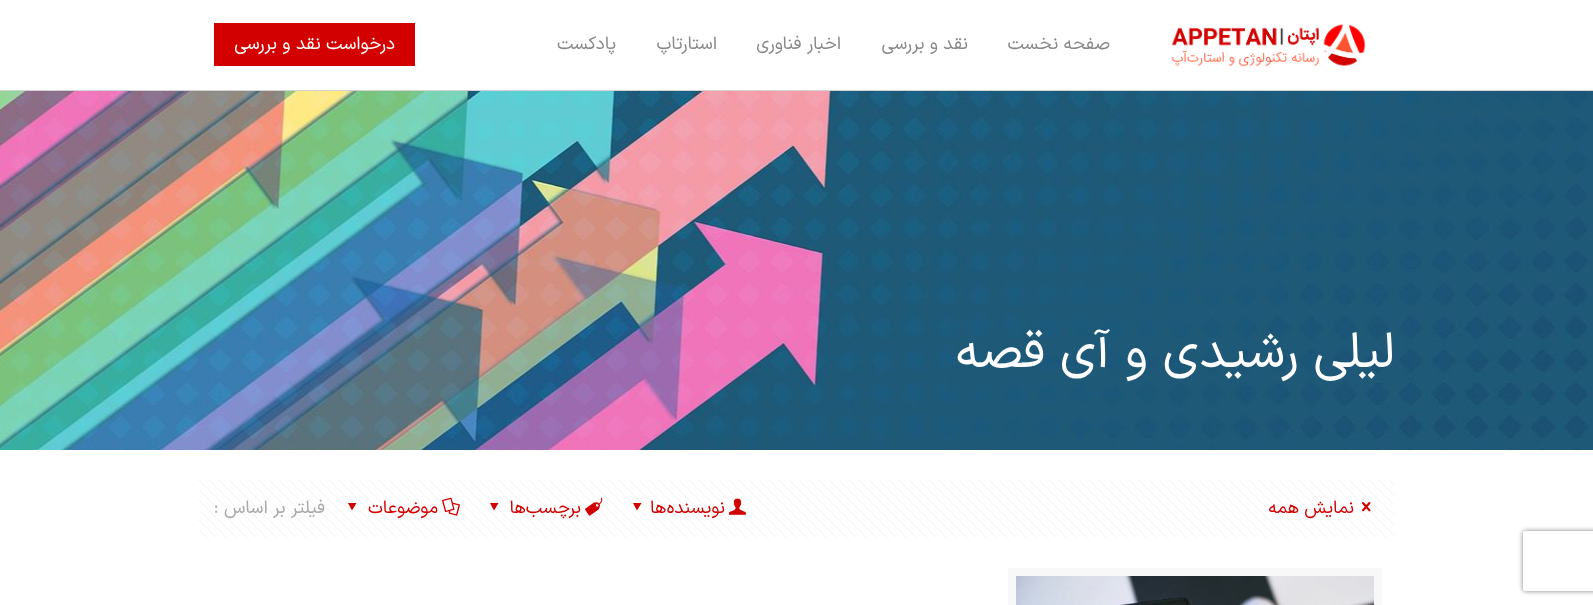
<svg xmlns="http://www.w3.org/2000/svg" width="1593" height="605">
	<defs>
		<clipPath id="clip1"><path d="M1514 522H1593V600H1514ZM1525 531H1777C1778 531 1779 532 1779 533V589C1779 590 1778 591 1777 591H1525C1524 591 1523 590 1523 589V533C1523 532 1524 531 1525 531Z" clip-rule="evenodd" /></clipPath>
	</defs>
	<rect width="100%" height="100%" fill="#FFFFFF" />
	<rect x="0" y="90" width="1593" height="1" fill="#D3D3D3" />
	<image x="1171" y="24" width="195" height="43" href="assets/img1.png" />
	<g font-family="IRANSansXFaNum" font-size="18" direction="rtl" fill="#888888">
		<text x="1110" y="49">صفحه نخست</text>
		<text x="968" y="49">نقد و بررسی</text>
		<text x="841" y="49">اخبار فناوری</text>
		<text x="717" y="49">استارتاپ</text>
		<text x="616" y="49">پادکست</text>
	</g>
	<rect x="214" y="23" width="201" height="43" fill="#D30000" />
	<text x="395" y="49" font-family="IRANSansXFaNum" font-size="18" direction="rtl" fill="#FFFFFF">درخواست نقد و بررسی</text>
	<image x="0" y="91" width="1593" height="359" href="assets/img2.png" />
	<text x="1394" y="367" font-family="IRANSansXFaNum" font-size="50" direction="rtl" fill="#FFFFFF">لیلی رشیدی و آی قصه</text>
	<image x="199" y="480" width="1195" height="58" href="assets/img3.png" />
	<image x="1362" y="502" width="9" height="10" href="assets/img4.png" />
	<text x="1354" y="513" font-family="IRANSansXFaNum" font-size="18" direction="rtl" fill="#D30000">نمایش همه</text>
	<image x="729" y="498" width="17" height="17" href="assets/img5.png" />
	<text x="725" y="513" font-family="IRANSansXFaNum" font-size="18" direction="rtl" fill="#D30000">نویسنده‌ها</text>
	<path d="M641.5 503L637 510.5L633 503Z" fill="#D30000" />
	<image x="585" y="497" width="18" height="19" href="assets/img6.png" />
	<text x="581" y="513" font-family="IRANSansXFaNum" font-size="18" direction="rtl" fill="#D30000">برچسب‌ها</text>
	<path d="M498.5 503L494 510.5L490 503Z" fill="#D30000" />
	<image x="442" y="497" width="18" height="19" href="assets/img7.png" />
	<text x="438" y="513" font-family="IRANSansXFaNum" font-size="18" direction="rtl" fill="#D30000">موضوعات</text>
	<path d="M356.5 503L352 510.5L348 503Z" fill="#D30000" />
	<text x="325" y="513" font-family="IRANSansXFaNum" font-size="18" direction="rtl" fill="#A8A8A8">فیلتر بر اساس :</text>
	<rect x="1012" y="572" width="366" height="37" fill="none" stroke="#F8F8F8" stroke-width="8" />
	<image x="1016" y="576" width="358" height="29" href="assets/img8.png" />
	<g clip-path="url(#clip1)">
		<rect x="1523" y="531" width="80" height="60" rx="2" fill="#808080" filter="blur(2.5px)" />
	</g>
</svg>
